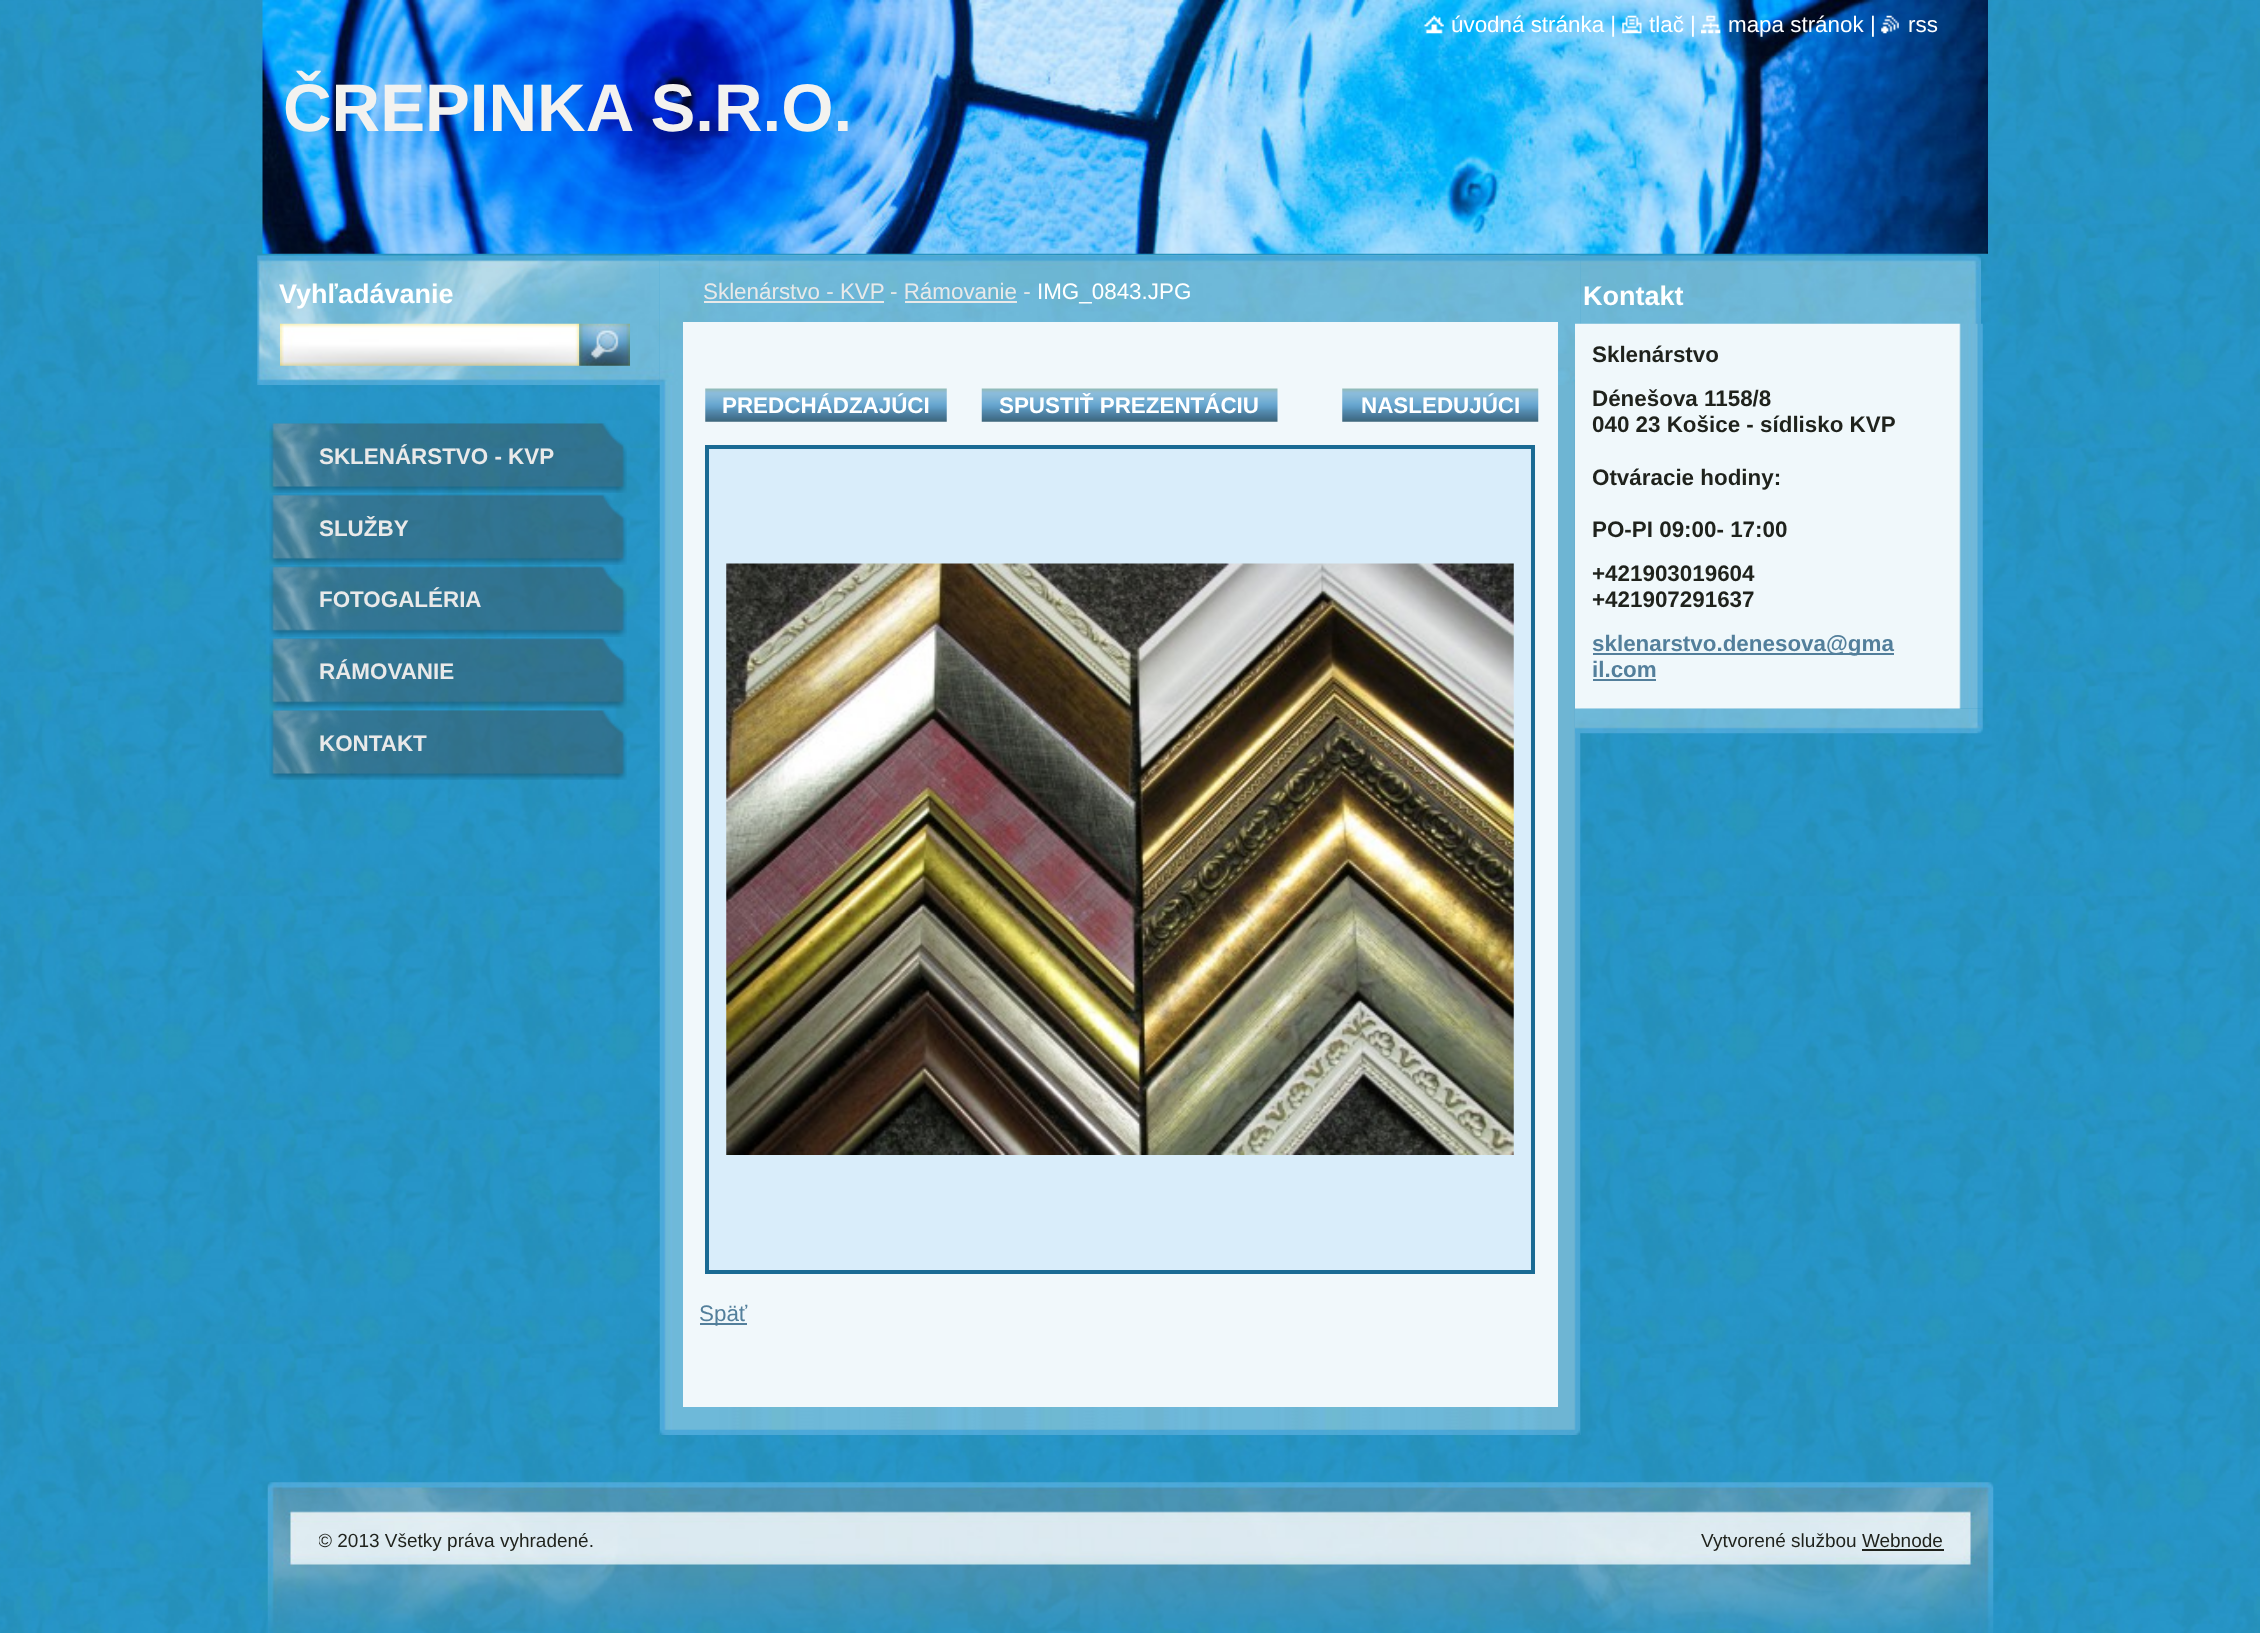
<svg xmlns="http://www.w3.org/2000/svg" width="2260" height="1633">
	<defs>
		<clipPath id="clip1"><rect x="319" y="1528" width="787" height="28" /></clipPath>
	</defs>
	<rect width="100%" height="100%" fill="#FFFFFF" />
	<image x="0" y="0" width="2260" height="1633" href="assets/img1.png" />
	<image x="262" y="0" width="1726" height="254" href="assets/img6.png" />
	<image x="1424" y="15" width="20" height="19" href="assets/img2.png" />
	<text x="1451" y="32" font-family="Liberation Sans" font-size="22.4" fill="#FFFFFF">úvodná stránka |</text>
	<image x="1622" y="15" width="20" height="19" href="assets/img3.png" />
	<text x="1649" y="32" font-family="Liberation Sans" font-size="22.4" fill="#FFFFFF">tlač |</text>
	<image x="1701" y="15" width="20" height="19" href="assets/img4.png" />
	<text x="1728" y="32" font-family="Liberation Sans" font-size="22.4" fill="#FFFFFF">mapa stránok |</text>
	<image x="1881" y="15" width="18" height="19" href="assets/img5.png" />
	<text x="1908" y="32" font-family="Liberation Sans" font-size="22.4" fill="#FFFFFF">rss</text>
	<text x="283" y="131" font-family="Liberation Sans" font-size="67.25" font-weight="700" fill="#F3F2EF">ČREPINKA S.R.O.</text>
	<image x="257" y="255" width="1724" height="130" href="assets/img7.png" />
	<text x="279" y="303" font-family="Liberation Sans" font-size="27" font-weight="700" fill="#FFFFFF">Vyhľadávanie</text>
	<image x="280" y="323" width="300" height="43" href="assets/img8.png" />
	<image x="579" y="323" width="51" height="43" href="assets/img9.png" />
	<image x="659" y="255" width="922" height="1180" href="assets/img10.png" />
	<image x="660" y="256" width="920" height="129" href="assets/img11.png" />
	<text x="703" y="299" font-family="Liberation Sans" font-size="22.4" fill="#E9E9E9">Sklenárstvo - KVP</text>
	<rect x="704" y="301" width="180" height="2" fill="#E9E9E9" />
	<text x="890" y="299" font-family="Liberation Sans" font-size="22.4" fill="#E9E9E9">- Rámovanie -</text>
	<text x="1037" y="299" font-family="Liberation Sans" font-size="22.4" fill="#FFFFFF">IMG_0843.JPG</text>
	<rect x="905" y="301" width="112" height="2" fill="#E9E9E9" />
	<rect x="683" y="322" width="875" height="1085" fill="#F1F8FB" />
	<image x="705" y="388" width="242" height="34" href="assets/img12.png" />
	<text x="722" y="413" font-family="Liberation Sans" font-size="22.4" font-weight="700" fill="#FFFFFF">PREDCHÁDZAJÚCI</text>
	<image x="981" y="388" width="297" height="34" href="assets/img13.png" />
	<text x="999" y="413" font-family="Liberation Sans" font-size="22.4" font-weight="700" fill="#FFFFFF">SPUSTIŤ PREZENTÁCIU</text>
	<image x="1342" y="388" width="197" height="34" href="assets/img14.png" />
	<text x="1361" y="413" font-family="Liberation Sans" font-size="22.4" font-weight="700" fill="#FFFFFF">NASLEDUJÚCI</text>
	<rect x="707" y="447" width="826" height="825" fill="#D9EDFA" stroke="#1A6B94" stroke-width="4" />
	<image x="726" y="563" width="788" height="592" href="assets/img15.png" />
	<rect x="700" y="1323" width="47" height="2" fill="#537F9B" />
	<text x="699" y="1321" font-family="Liberation Sans" font-size="22.4" fill="#537F9B">Späť</text>
	<image x="660" y="1429" width="920" height="6" href="assets/img16.png" />
	<text x="1583" y="305" font-family="Liberation Sans" font-size="27" font-weight="700" fill="#FFFFFF">Kontakt</text>
	<image x="1575" y="323" width="408" height="386" href="assets/img17.png" />
	<g font-family="Liberation Sans" font-size="22.4" font-weight="700" fill="#1F221C">
		<text x="1592" y="362">Sklenárstvo</text>
		<text x="1592" y="406">Dénešova 1158/8</text>
		<text x="1592" y="432">040 23 Košice - sídlisko KVP</text>
		<text x="1592" y="485">Otváracie hodiny:</text>
		<text x="1592" y="537">PO-PI 09:00- 17:00</text>
		<text x="1592" y="581">+421903019604</text>
		<text x="1592" y="607">+421907291637</text>
	</g>
	<rect x="1593" y="653" width="301" height="2" fill="#537F9B" />
	<g font-family="Liberation Sans" font-size="22.4" font-weight="700" fill="#537F9B">
		<text x="1592" y="651">sklenarstvo.denesova@gma</text>
		<text x="1592" y="677">il.com</text>
	</g>
	<rect x="1593" y="679" width="63" height="2" fill="#537F9B" />
	<image x="1575" y="708" width="408" height="26" href="assets/img18.png" />
	<image x="269" y="423" width="358" height="70" href="assets/img19.png" />
	<text x="319" y="464" font-family="Liberation Sans" font-size="22.4" font-weight="700" fill="#E9E9E9">SKLENÁRSTVO - KVP</text>
	<image x="269" y="494" width="358" height="71" href="assets/img20.png" />
	<text x="319" y="536" font-family="Liberation Sans" font-size="22.4" font-weight="700" fill="#E9E9E9">SLUŽBY</text>
	<image x="269" y="566" width="358" height="71" href="assets/img21.png" />
	<text x="319" y="607" font-family="Liberation Sans" font-size="22.4" font-weight="700" fill="#E9E9E9">FOTOGALÉRIA</text>
	<image x="269" y="638" width="358" height="71" href="assets/img22.png" />
	<text x="319" y="679" font-family="Liberation Sans" font-size="22.4" font-weight="700" fill="#E9E9E9">RÁMOVANIE</text>
	<image x="269" y="710" width="358" height="70" href="assets/img23.png" />
	<text x="319" y="751" font-family="Liberation Sans" font-size="22.4" font-weight="700" fill="#E9E9E9">KONTAKT</text>
	<image x="267" y="1482" width="1727" height="151" href="assets/img24.png" />
	<g clip-path="url(#clip1)">
		<text x="318" y="1547" font-family="Liberation Sans" font-size="19" fill="#1F221C">© 2013 Všetky práva vyhradené.</text>
	</g>
	<text x="1701" y="1547" font-family="Liberation Sans" font-size="19" fill="#1F221C">Vytvorené službou Webnode</text>
	<rect x="1862" y="1549" width="82" height="2" fill="#1F221C" />
</svg>
